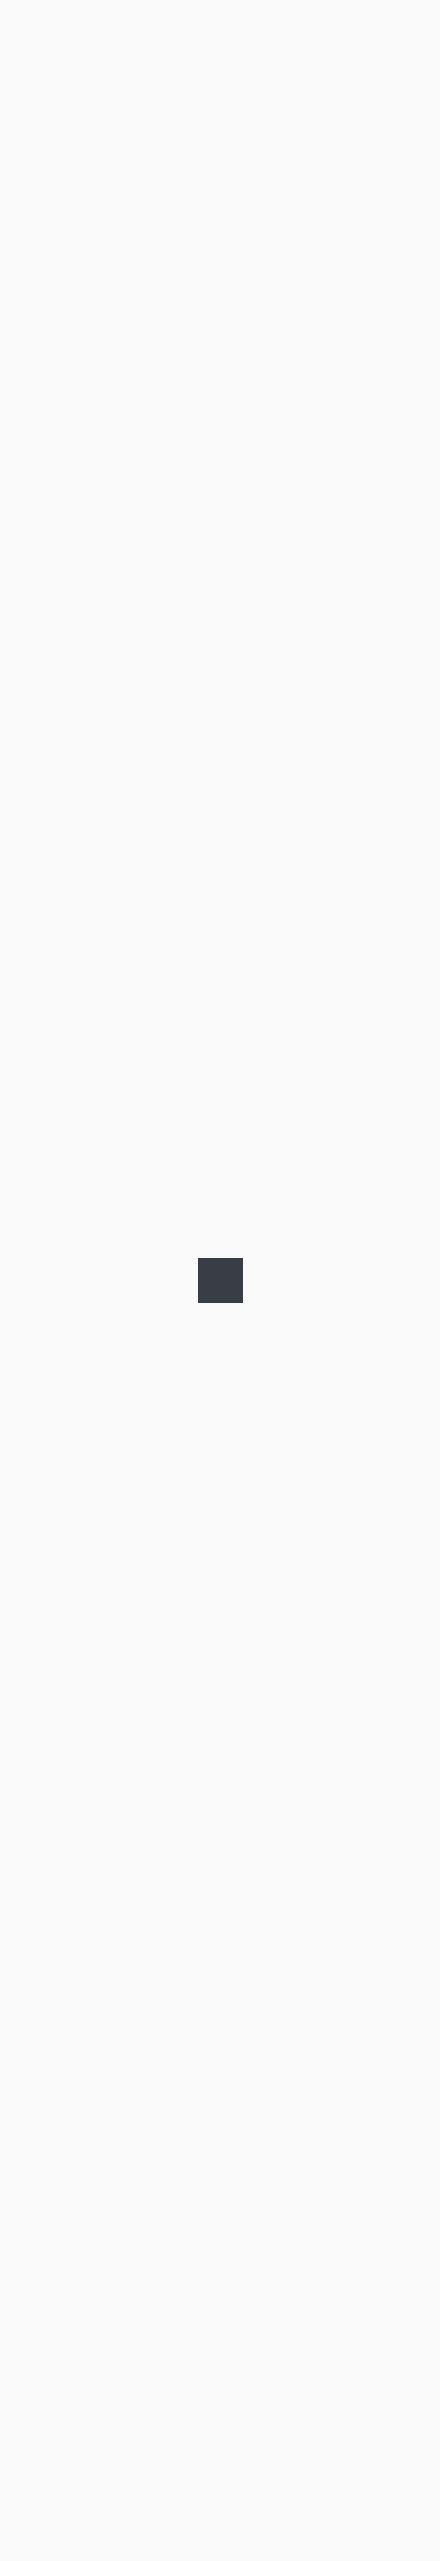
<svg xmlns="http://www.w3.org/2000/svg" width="440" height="2561">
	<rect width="100%" height="100%" fill="#FAFAFA" />
	<rect x="198" y="1258" width="45" height="45" fill="#393E46" />
</svg>
